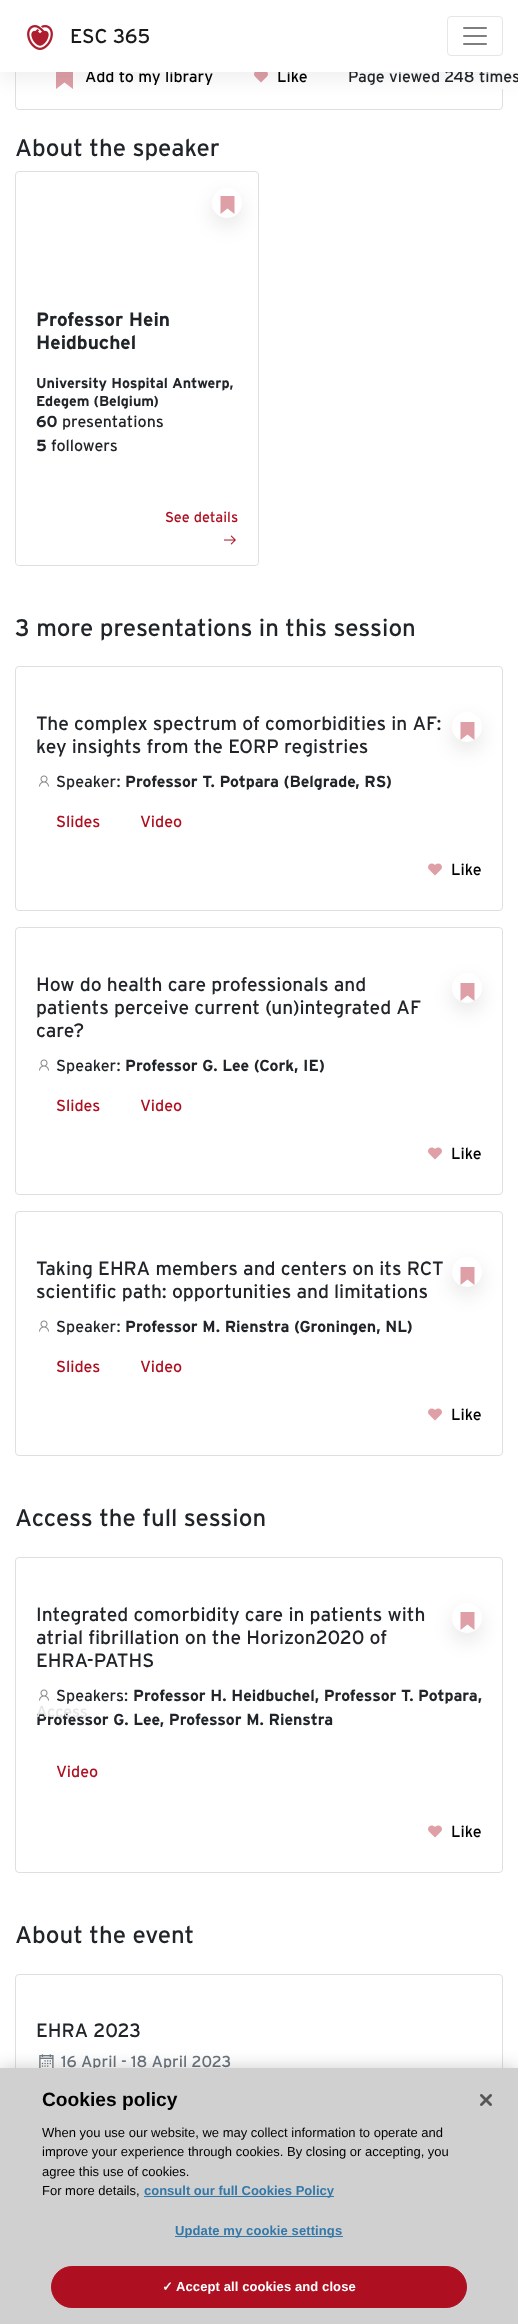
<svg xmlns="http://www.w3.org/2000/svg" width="518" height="2324">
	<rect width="100%" height="100%" fill="#FFFFFF" />
	<rect x="15.5" y="-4.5" width="487" height="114" rx="3.5" fill="none" stroke="#DFDFDF" />
	<path d="M56 67V89L64.5 82.5L73 89V67Z" fill="#DF9FA7" />
	<image x="254" y="72" width="14" height="11" href="assets/img3.png" />
	<rect x="502" y="72" width="1" height="17" fill="#FFFFFF" />
	<rect x="0" y="8" width="518" height="72" fill="#000000" fill-opacity="0.06" filter="blur(10px)" />
	<g font-family="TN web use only" font-size="16" fill="#000000">
		<text x="85" y="82">Add to my library</text>
		<text x="277" y="82">Like</text>
	</g>
	<text x="348" y="82" font-family="TN web use only" font-size="16" fill="#212529">Page viewed 248 times</text>
	<rect x="0" y="0" width="518" height="72" fill="#FFFFFF" />
	<image x="27" y="25" width="26" height="25" href="assets/img1.png" />
	<text x="70" y="43" font-family="TN web use only" font-size="20" fill="#1A1A1A">ESC 365</text>
	<rect x="447.5" y="16.5" width="55" height="39" rx="3.5" fill="none" stroke="#E6E6E6" />
	<image x="463" y="27" width="24" height="18" href="assets/img2.png" />
	<text x="15" y="156" font-family="TN web use only" font-size="24" fill="#212529">About the speaker</text>
	<rect x="15.5" y="171.5" width="243" height="394" rx="3.5" fill="none" stroke="#DFDFDF" />
	<rect x="212" y="196" width="30" height="30" rx="15" fill="#000000" fill-opacity="0.1" filter="blur(10px)" />
	<circle cx="227" cy="203" r="15" fill="#FFFFFF" />
	<path d="M220.5 196V214L227.5 208.5L234.5 214V196Z" fill="#DF9FA7" />
	<g font-family="TN web use only" font-size="19.2" font-weight="700" fill="#212529">
		<text x="36" y="326">Professor Hein</text>
		<text x="36" y="349">Heidbuchel</text>
	</g>
	<g font-family="TN web use only" font-size="14.4" font-weight="700" fill="#212529">
		<text x="36" y="388">University Hospital Antwerp,</text>
		<text x="36" y="406">Edegem (Belgium)</text>
	</g>
	<text x="36" y="427" font-family="TN web use only" font-size="16" font-weight="700" fill="#212529">60</text>
	<text x="62" y="427" font-family="TN web use only" font-size="16" fill="#212529">presentations</text>
	<text x="36" y="451" font-family="TN web use only" font-size="16" font-weight="700" fill="#212529">5</text>
	<text x="51" y="451" font-family="TN web use only" font-size="16" fill="#212529">followers</text>
	<path d="M16 493H258V562C258 563.5 256.5 565 255 565H19C17.5 565 16 563.5 16 562Z" fill="#FFFFFF" />
	<text x="165" y="522" font-family="TN web use only" font-size="14.4" fill="#AE1022">See details</text>
	<image x="224" y="535" width="12" height="10" href="assets/img4.png" />
	<text x="15" y="636" font-family="TN web use only" font-size="24" fill="#212529">3 more presentations in this session</text>
	<rect x="15.5" y="666.5" width="487" height="244" rx="3.5" fill="none" stroke="#DFDFDF" />
	<g font-family="TN web use only" font-size="19.2" fill="#212529">
		<text x="36" y="730">The complex spectrum of comorbidities in AF:</text>
		<text x="36" y="753">key insights from the EORP registries</text>
	</g>
	<rect x="452" y="720" width="30" height="30" rx="15" fill="#000000" fill-opacity="0.1" filter="blur(10px)" />
	<circle cx="467" cy="727" r="15" fill="#FFFFFF" />
	<path d="M460.5 722V740L467.5 734.5L474.5 740V722Z" fill="#DF9FA7" />
	<image x="39" y="775" width="10" height="12" href="assets/img5.png" />
	<text x="56" y="787" font-family="TN web use only" font-size="16" fill="#212529">Speaker:</text>
	<text x="125" y="787" font-family="TN web use only" font-size="16" font-weight="700" fill="#212529">Professor T. Potpara (Belgrade, RS)</text>
	<g font-family="TN web use only" font-size="16" fill="#AE1022">
		<text x="56" y="827">Slides</text>
		<text x="140" y="827">Video</text>
	</g>
	<image x="428" y="863" width="14" height="13" href="assets/img6.png" />
	<text x="451" y="875" font-family="TN web use only" font-size="16" fill="#000000">Like</text>
	<rect x="15.5" y="927.5" width="487" height="267" rx="3.5" fill="none" stroke="#DFDFDF" />
	<g font-family="TN web use only" font-size="19.2" fill="#212529">
		<text x="36" y="991">How do health care professionals and</text>
		<text x="36" y="1014">patients perceive current (un)integrated AF</text>
		<text x="36" y="1037">care?</text>
	</g>
	<rect x="452" y="981" width="30" height="30" rx="15" fill="#000000" fill-opacity="0.1" filter="blur(10px)" />
	<circle cx="467" cy="988" r="15" fill="#FFFFFF" />
	<path d="M460.5 983V1001L467.5 995.5L474.5 1001V983Z" fill="#DF9FA7" />
	<image x="39" y="1059" width="10" height="12" href="assets/img5.png" />
	<text x="56" y="1071" font-family="TN web use only" font-size="16" fill="#212529">Speaker:</text>
	<text x="125" y="1071" font-family="TN web use only" font-size="16" font-weight="700" fill="#212529">Professor G. Lee (Cork, IE)</text>
	<g font-family="TN web use only" font-size="16" fill="#AE1022">
		<text x="56" y="1111">Slides</text>
		<text x="140" y="1111">Video</text>
	</g>
	<image x="428" y="1147" width="14" height="13" href="assets/img6.png" />
	<text x="451" y="1159" font-family="TN web use only" font-size="16" fill="#000000">Like</text>
	<rect x="15.5" y="1211.5" width="487" height="244" rx="3.5" fill="none" stroke="#DFDFDF" />
	<g font-family="TN web use only" font-size="19.2" fill="#212529">
		<text x="36" y="1275">Taking EHRA members and centers on its RCT</text>
		<text x="36" y="1298">scientific path: opportunities and limitations</text>
	</g>
	<rect x="452" y="1265" width="30" height="30" rx="15" fill="#000000" fill-opacity="0.1" filter="blur(10px)" />
	<circle cx="467" cy="1272" r="15" fill="#FFFFFF" />
	<path d="M460.5 1267V1285L467.5 1279.5L474.5 1285V1267Z" fill="#DF9FA7" />
	<image x="39" y="1320" width="10" height="12" href="assets/img5.png" />
	<text x="56" y="1332" font-family="TN web use only" font-size="16" fill="#212529">Speaker:</text>
	<text x="125" y="1332" font-family="TN web use only" font-size="16" font-weight="700" fill="#212529">Professor M. Rienstra (Groningen, NL)</text>
	<g font-family="TN web use only" font-size="16" fill="#AE1022">
		<text x="56" y="1372">Slides</text>
		<text x="140" y="1372">Video</text>
	</g>
	<image x="428" y="1408" width="14" height="13" href="assets/img6.png" />
	<text x="451" y="1420" font-family="TN web use only" font-size="16" fill="#000000">Like</text>
	<text x="15" y="1526" font-family="TN web use only" font-size="24" fill="#212529">Access the full session</text>
	<rect x="15.5" y="1557.5" width="487" height="315" rx="3.5" fill="none" stroke="#DFDFDF" />
	<g font-family="TN web use only" font-size="19.2" fill="#212529">
		<text x="36" y="1621">Integrated comorbidity care in patients with</text>
		<text x="36" y="1644">atrial fibrillation on the Horizon2020 of</text>
		<text x="36" y="1667">EHRA-PATHS</text>
	</g>
	<rect x="452" y="1611" width="30" height="30" rx="15" fill="#000000" fill-opacity="0.1" filter="blur(10px)" />
	<circle cx="467" cy="1618" r="15" fill="#FFFFFF" />
	<path d="M460.5 1612V1630L467.5 1624.5L474.5 1630V1612Z" fill="#DF9FA7" />
	<image x="39" y="1689" width="10" height="12" href="assets/img5.png" />
	<text x="56" y="1701" font-family="TN web use only" font-size="16" fill="#212529">Speakers:</text>
	<g font-family="TN web use only" font-size="16" font-weight="700" fill="#212529">
		<text x="133" y="1701">Professor H. Heidbuchel, Professor T. Potpara,</text>
		<text x="36" y="1725">Professor G. Lee, Professor M. Rienstra</text>
	</g>
	<text x="36" y="1717" font-family="TN web use only" font-size="16" fill="#E6E6E6">Access</text>
	<text x="56" y="1777" font-family="TN web use only" font-size="16" fill="#AE1022">Video</text>
	<image x="428" y="1825" width="14" height="13" href="assets/img6.png" />
	<text x="451" y="1837" font-family="TN web use only" font-size="16" fill="#000000">Like</text>
	<text x="15" y="1943" font-family="TN web use only" font-size="24" fill="#212529">About the event</text>
	<rect x="15.5" y="1974.5" width="487" height="262" rx="3.5" fill="none" stroke="#DFDFDF" />
	<text x="36" y="2037" font-family="TN web use only" font-size="19.2" fill="#212529">EHRA 2023</text>
	<image x="39" y="2054" width="15" height="14" href="assets/img7.png" />
	<text x="61" y="2067" font-family="TN web use only" font-size="16" fill="#6C757D">16 April - 18 April 2023</text>
	<rect x="0" y="2068" width="518" height="256" fill="#000000" fill-opacity="0.2" filter="blur(9px)" />
	<rect x="0" y="2068" width="518" height="256" fill="#D0D0D0" />
	<text x="42" y="2106" font-family="Liberation Sans" font-size="19.2" font-weight="700" fill="#000000">Cookies policy</text>
	<g font-family="Liberation Sans" font-size="13" fill="#000000">
		<text x="42" y="2137">When you use our website, we may collect information to operate and</text>
		<text x="42" y="2156">improve your experience through cookies. By closing or accepting, you</text>
		<text x="42" y="2176">agree this use of cookies.</text>
		<text x="42" y="2195">For more details,</text>
	</g>
	<rect x="144" y="2196" width="190" height="1" fill="#3378A9" />
	<text x="144" y="2195" font-family="Liberation Sans" font-size="13" font-weight="700" fill="#3378A9">consult our full Cookies Policy</text>
	<rect x="175" y="2236" width="168" height="1" fill="#3378A9" />
	<text x="175" y="2235" font-family="Liberation Sans" font-size="13" font-weight="700" letter-spacing="0.1" fill="#3378A9">Update my cookie settings</text>
	<rect x="51.5" y="2266.5" width="415" height="41" rx="20.5" fill="#AE1022" stroke="#AE1022" />
	<text x="162" y="2291" font-family="DejaVu Sans" font-size="13" font-weight="700" letter-spacing="0.1" fill="#FFFFFF">✓</text>
	<text x="176" y="2291" font-family="Liberation Sans" font-size="13" font-weight="700" letter-spacing="0.1" fill="#FFFFFF">Accept all cookies and close</text>
	<image x="480" y="2094" width="12" height="12" href="assets/img8.png" />
</svg>
